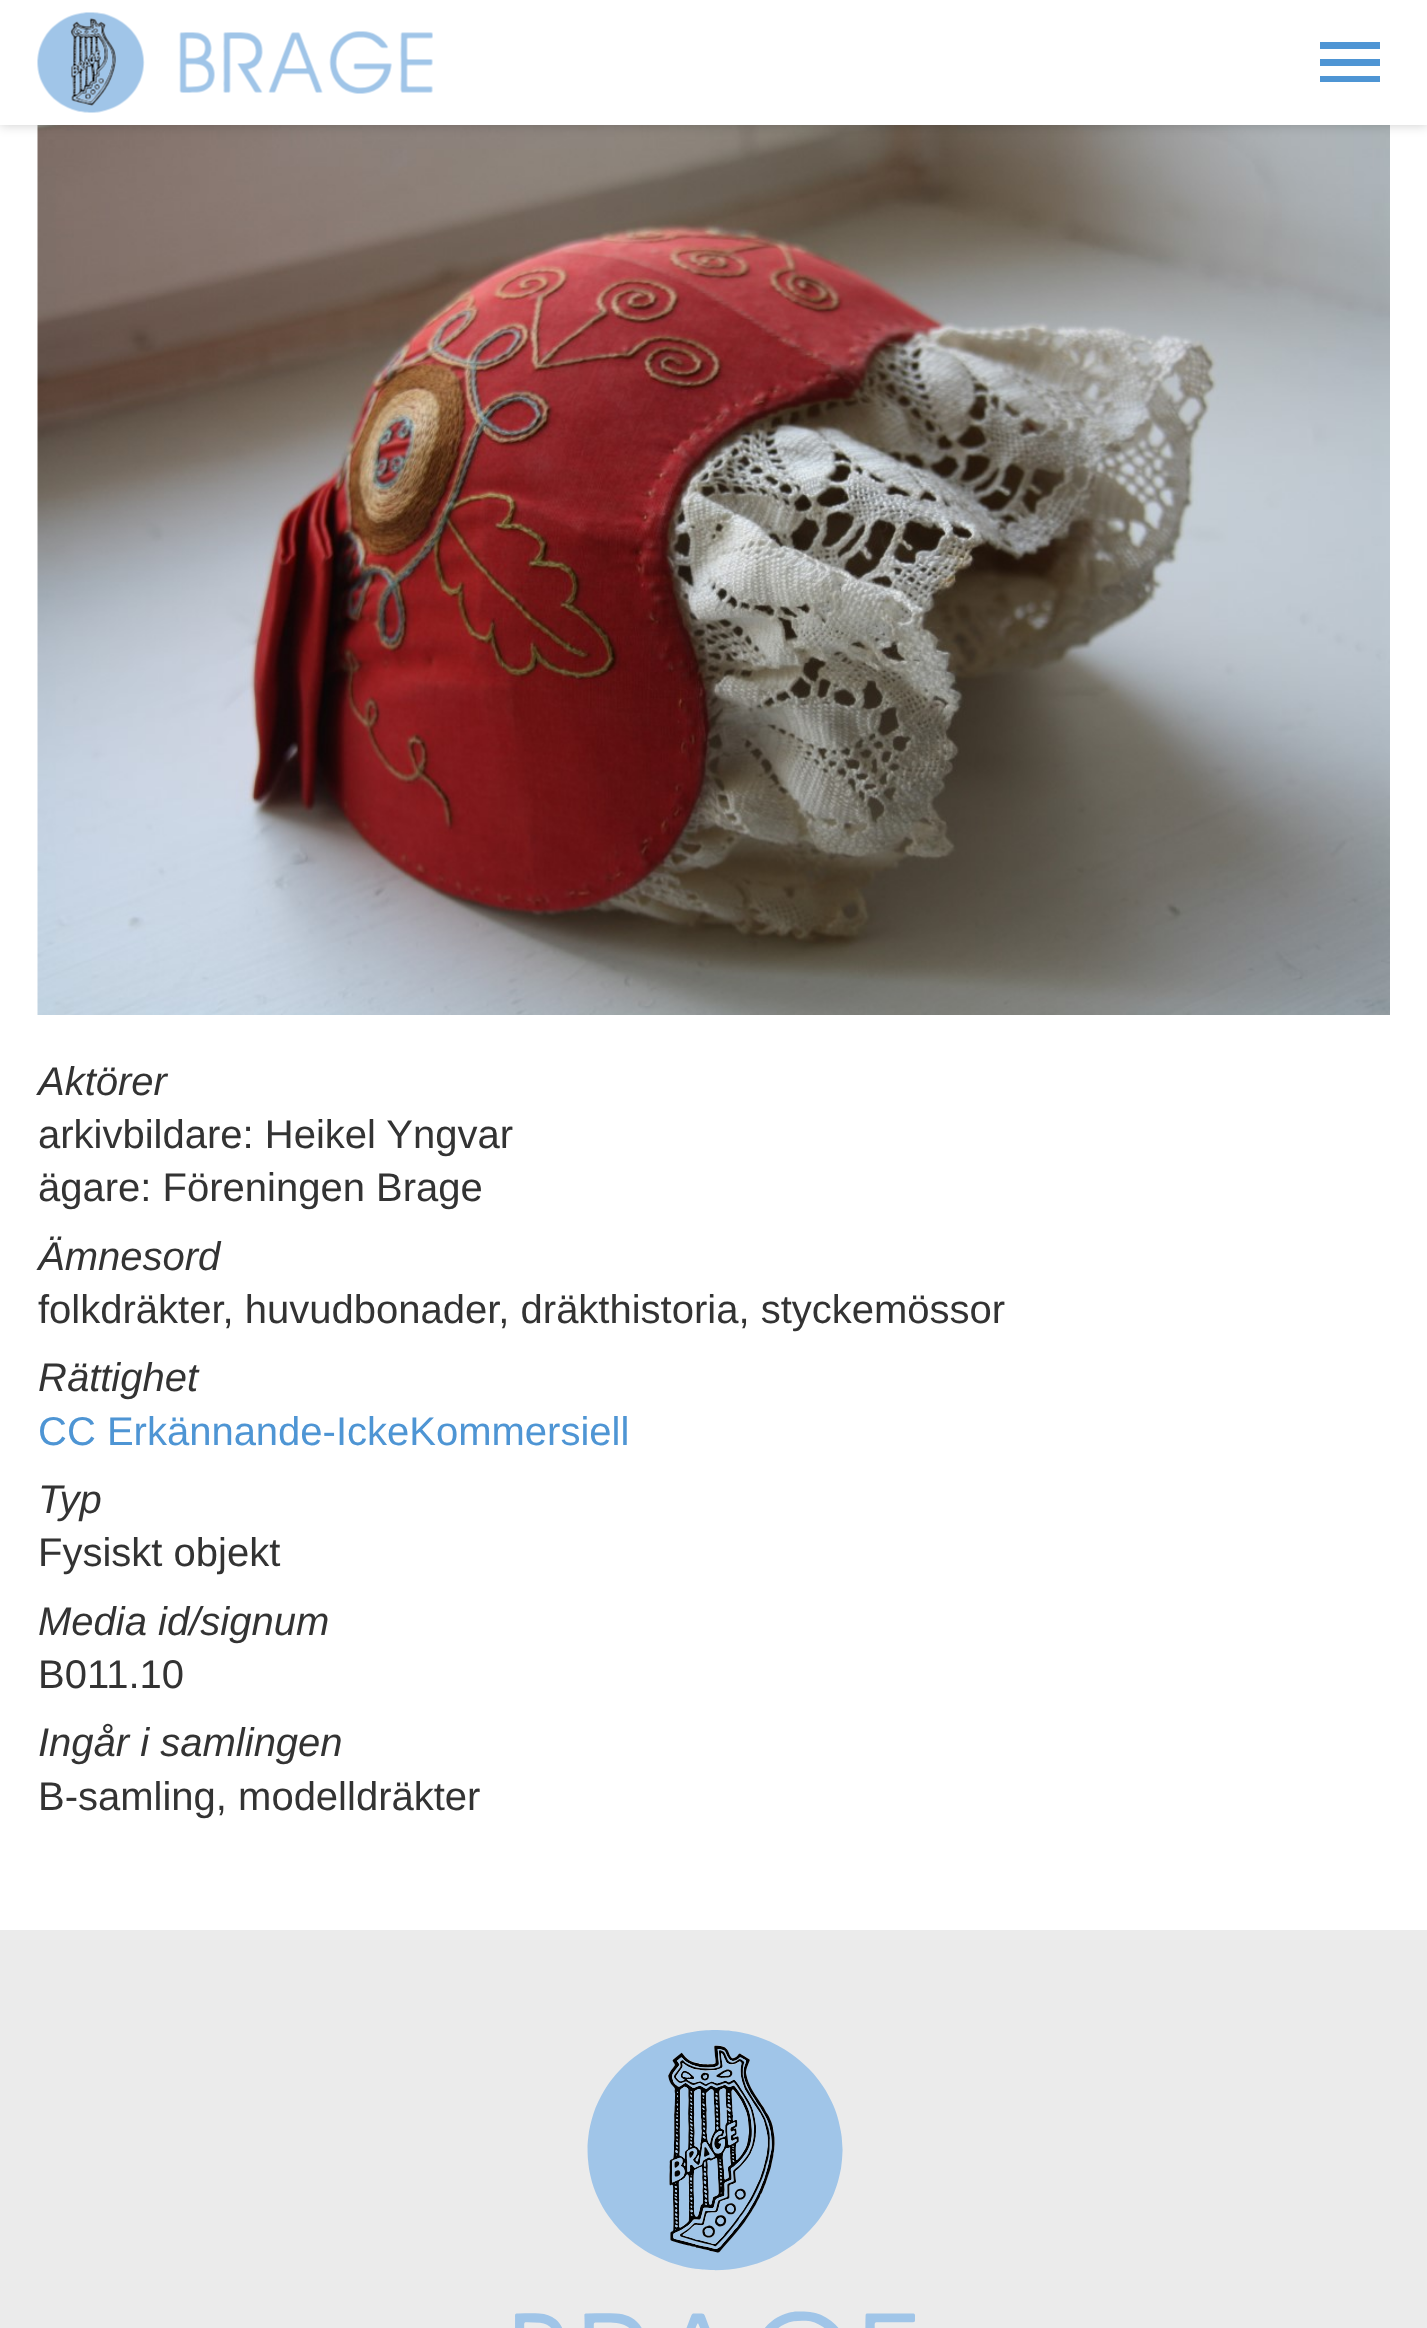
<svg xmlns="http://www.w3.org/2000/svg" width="1427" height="2328">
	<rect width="100%" height="100%" fill="#FFFFFF" />
	<image x="37" y="125" width="1353" height="890" href="assets/img2.png" />
	<rect x="0" y="0" width="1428" height="125" fill="#000000" fill-opacity="0.2" filter="blur(6px)" />
	<rect x="0" y="0" width="1427" height="125" fill="#FFFFFF" />
	<image x="37" y="12" width="396" height="101" href="assets/img1.png" />
	<path d="M1320 42H1380V49H1320ZM1320 66V59H1380V66ZM1320 82V76H1380V82Z" fill="#4E95D4" />
	<text x="38" y="1095" font-family="Arimo" font-size="40" font-style="italic" fill="#333333">Aktörer</text>
	<g font-family="Arimo" font-size="40" fill="#333333">
		<text x="38" y="1148">arkivbildare: Heikel Yngvar</text>
		<text x="38" y="1201">ägare: Föreningen Brage</text>
	</g>
	<text x="38" y="1270" font-family="Arimo" font-size="40" font-style="italic" fill="#333333">Ämnesord</text>
	<text x="38" y="1323" font-family="Arimo" font-size="40" fill="#333333">folkdräkter, huvudbonader, dräkthistoria, styckemössor</text>
	<text x="38" y="1391" font-family="Arimo" font-size="40" font-style="italic" fill="#333333">Rättighet</text>
	<text x="38" y="1445" font-family="Arimo" font-size="40" fill="#4E95D4">CC Erkännande-IckeKommersiell</text>
	<text x="38" y="1513" font-family="Arimo" font-size="40" font-style="italic" fill="#333333">Typ</text>
	<text x="38" y="1566" font-family="Arimo" font-size="40" fill="#333333">Fysiskt objekt</text>
	<text x="38" y="1635" font-family="Arimo" font-size="40" font-style="italic" fill="#333333">Media id/signum</text>
	<text x="38" y="1688" font-family="Arimo" font-size="40" fill="#333333">B011.10</text>
	<text x="38" y="1756" font-family="Arimo" font-size="40" font-style="italic" fill="#333333">Ingår i samlingen</text>
	<text x="38" y="1810" font-family="Arimo" font-size="40" fill="#333333">B-samling, modelldräkter</text>
	<rect x="0" y="1930" width="1427" height="398" fill="#EBEBEB" />
	<image x="515" y="2030" width="400" height="298" href="assets/img3.png" />
</svg>
